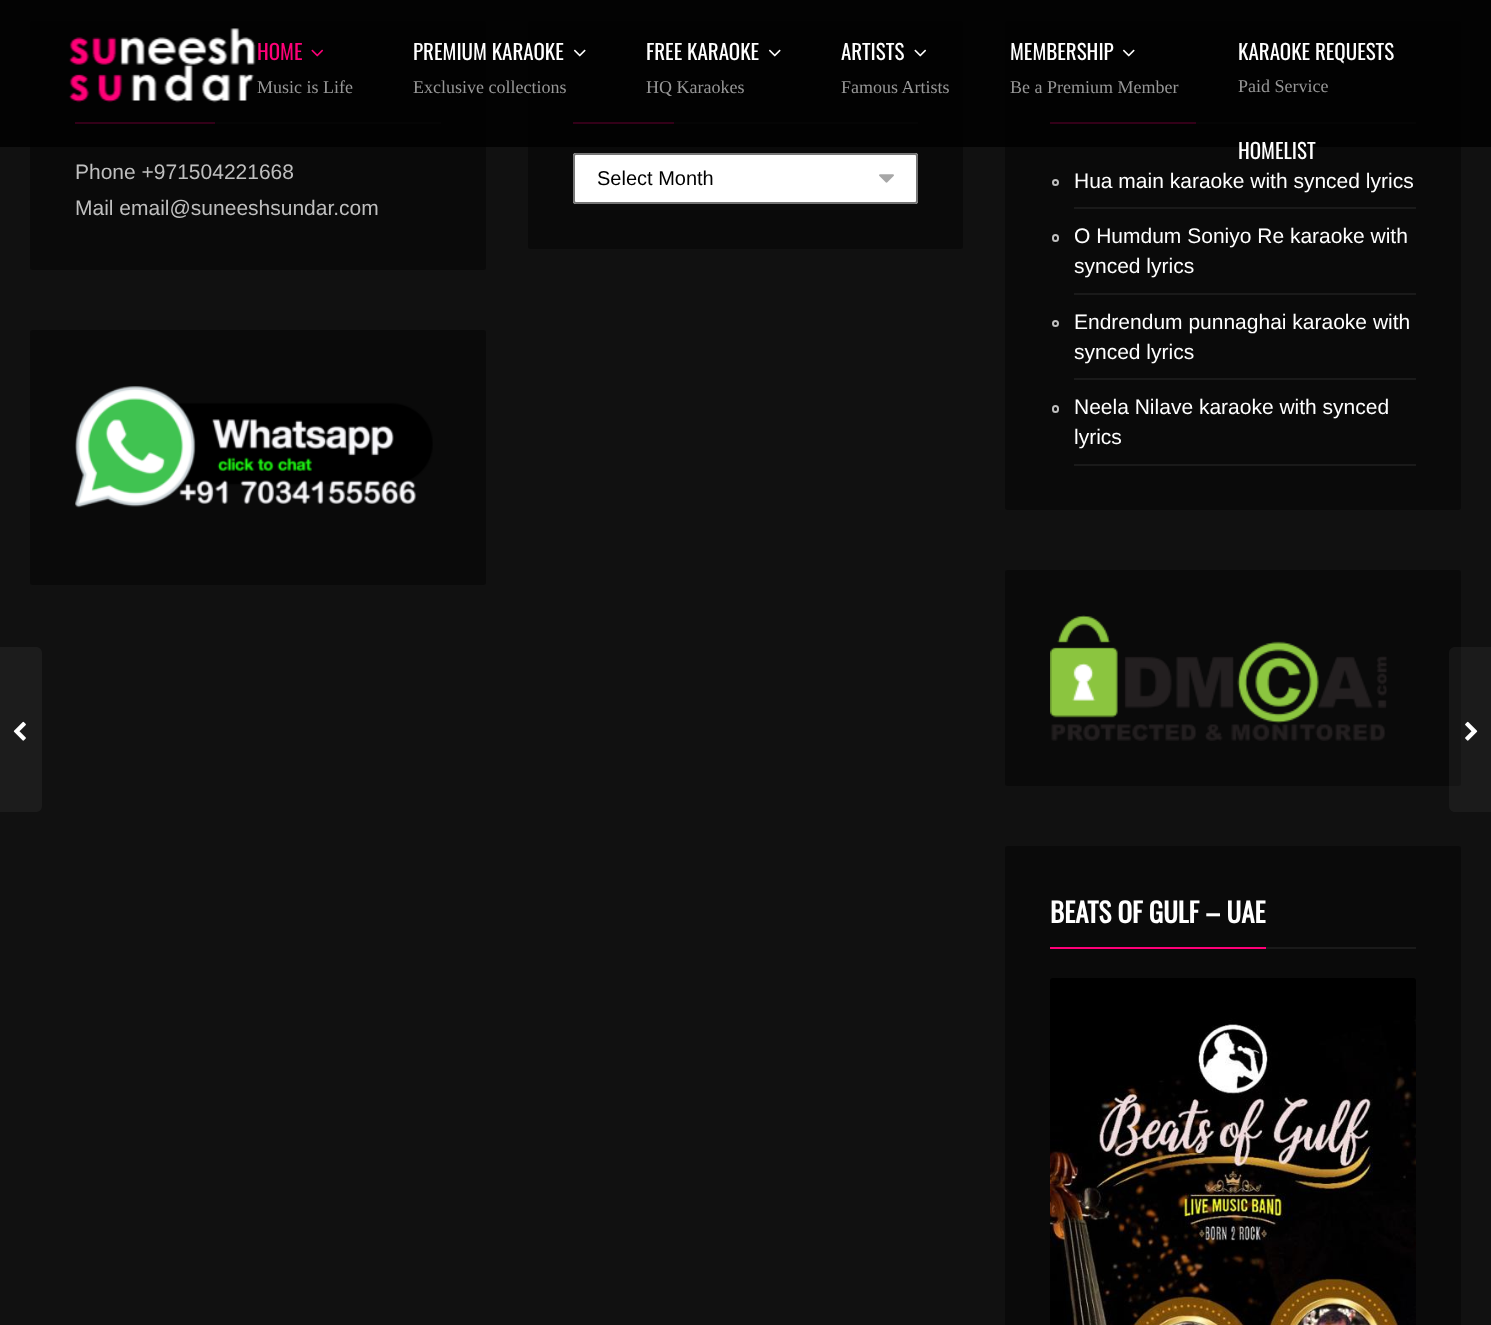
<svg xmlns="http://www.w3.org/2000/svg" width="1491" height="1325">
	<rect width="100%" height="100%" fill="#111111" />
	<rect x="30" y="21" width="456" height="249" rx="3" fill="#0A0A0A" />
	<rect x="75" y="122" width="140" height="2" fill="#FF0078" />
	<rect x="215" y="122" width="226" height="2" fill="#1A1A1A" />
	<rect x="528" y="21" width="435" height="228" rx="3" fill="#0A0A0A" />
	<rect x="573" y="122" width="101" height="2" fill="#FF0078" />
	<rect x="674" y="122" width="244" height="2" fill="#1A1A1A" />
	<rect x="1005" y="21" width="456" height="489" rx="3" fill="#0A0A0A" />
	<rect x="1050" y="122" width="146" height="2" fill="#FF0078" />
	<rect x="1196" y="122" width="220" height="2" fill="#1A1A1A" />
	<rect x="0" y="0" width="1491" height="147" fill="#000000" fill-opacity="0.8" />
	<image x="68" y="28" width="188" height="75" href="assets/img1.png" />
	<text x="257" y="60" font-family="Oswald" font-size="21" fill="#FF0078">HOME</text>
	<image x="311" y="49" width="13" height="8" href="assets/img2.png" />
	<text x="257" y="93" font-family="Liberation Serif" font-size="18" fill="#979797">Music is Life</text>
	<text x="413" y="60" font-family="Oswald" font-size="21" fill="#FFFFFF">PREMIUM KARAOKE</text>
	<image x="573" y="49" width="13" height="8" href="assets/img3.png" />
	<text x="413" y="93" font-family="Liberation Serif" font-size="18" fill="#979797">Exclusive collections</text>
	<text x="646" y="60" font-family="Oswald" font-size="21" fill="#FFFFFF">FREE KARAOKE</text>
	<image x="768" y="49" width="13" height="8" href="assets/img3.png" />
	<text x="646" y="93" font-family="Liberation Serif" font-size="18" fill="#979797">HQ Karaokes</text>
	<text x="841" y="60" font-family="Oswald" font-size="21" fill="#FFFFFF">ARTISTS</text>
	<image x="914" y="49" width="13" height="8" href="assets/img4.png" />
	<text x="841" y="93" font-family="Liberation Serif" font-size="18" fill="#979797">Famous Artists</text>
	<text x="1010" y="60" font-family="Oswald" font-size="21" fill="#FFFFFF">MEMBERSHIP</text>
	<image x="1122" y="49" width="13" height="8" href="assets/img3.png" />
	<text x="1010" y="93" font-family="Liberation Serif" font-size="18" fill="#979797">Be a Premium Member</text>
	<text x="1238" y="60" font-family="Oswald" font-size="21" fill="#FFFFFF">KARAOKE REQUESTS</text>
	<text x="1238" y="92" font-family="Liberation Serif" font-size="18" fill="#979797">Paid Service</text>
	<text x="1238" y="159" font-family="Oswald" font-size="21" fill="#FFFFFF">HOMELIST</text>
	<g font-family="Liberation Sans" font-size="21" fill="#BFBFBF">
		<text x="75" y="179">Phone +971504221668</text>
		<text x="75" y="215">Mail email@suneeshsundar.com</text>
	</g>
	<rect x="30" y="330" width="456" height="255" rx="3" fill="#0A0A0A" />
	<image x="75" y="386" width="358" height="122" href="assets/img5.png" />
	<rect x="573" y="153" width="345" height="51" rx="3" fill="#FFFFFF" />
	<image x="879" y="174" width="15" height="9" href="assets/img6.png" />
	<rect x="574" y="154" width="343" height="49" rx="2" fill="none" stroke="#767676" stroke-width="2" />
	<text x="597" y="185" font-family="Liberation Sans" font-size="20" fill="#000000">Select Month</text>
	<circle cx="1055.5" cy="182.5" r="2.5" fill="none" stroke="#BFBFBF" stroke-width="2" />
	<rect x="1074" y="207" width="342" height="2" fill="#1A1A1A" />
	<text x="1074" y="188" font-family="Liberation Sans" font-size="21" fill="#FFFFFF">Hua main karaoke with synced lyrics</text>
	<rect x="1053" y="235" width="5" height="6" rx="2.5" fill="none" stroke="#BFBFBF" stroke-width="2" />
	<rect x="1074" y="293" width="342" height="2" fill="#1A1A1A" />
	<g font-family="Liberation Sans" font-size="21" fill="#FFFFFF">
		<text x="1074" y="243">O Humdum Soniyo Re karaoke with</text>
		<text x="1074" y="273">synced lyrics</text>
	</g>
	<circle cx="1055.5" cy="323.5" r="2.5" fill="none" stroke="#BFBFBF" stroke-width="2" />
	<rect x="1074" y="378" width="342" height="2" fill="#1A1A1A" />
	<g font-family="Liberation Sans" font-size="21" fill="#FFFFFF">
		<text x="1074" y="329">Endrendum punnaghai karaoke with</text>
		<text x="1074" y="359">synced lyrics</text>
	</g>
	<rect x="1053" y="406" width="5" height="6" rx="2.5" fill="none" stroke="#BFBFBF" stroke-width="2" />
	<rect x="1074" y="464" width="342" height="2" fill="#1A1A1A" />
	<g font-family="Liberation Sans" font-size="21" fill="#FFFFFF">
		<text x="1074" y="414">Neela Nilave karaoke with synced</text>
		<text x="1074" y="444">lyrics</text>
	</g>
	<rect x="1005" y="570" width="456" height="216" rx="3" fill="#0A0A0A" />
	<image x="1050" y="615" width="337" height="126" href="assets/img7.png" />
	<rect x="1005" y="846" width="456" height="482" rx="3" fill="#0A0A0A" />
	<rect x="1050" y="947" width="216" height="2" fill="#FF0078" />
	<text x="1050" y="923" font-family="Oswald" font-size="27" font-weight="700" fill="#FFFFFF">BEATS OF GULF – UAE</text>
	<rect x="1266" y="947" width="150" height="2" fill="#1A1A1A" />
	<image x="1050" y="978" width="366" height="347" href="assets/img8.png" />
	<path d="M-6 647H36C39.5 647 42 649.5 42 653V806C42 809.5 39.5 812 36 812H-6Z" fill="#1C1C1C" />
	<image x="13" y="721" width="13" height="20" href="assets/img9.png" />
	<path d="M1455 647H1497V812H1455C1451.5 812 1449 809.5 1449 806V653C1449 649.5 1451.5 647 1455 647Z" fill="#A7A7A7" fill-opacity="0.07" />
	<image x="1465" y="721" width="13" height="20" href="assets/img10.png" />
</svg>
